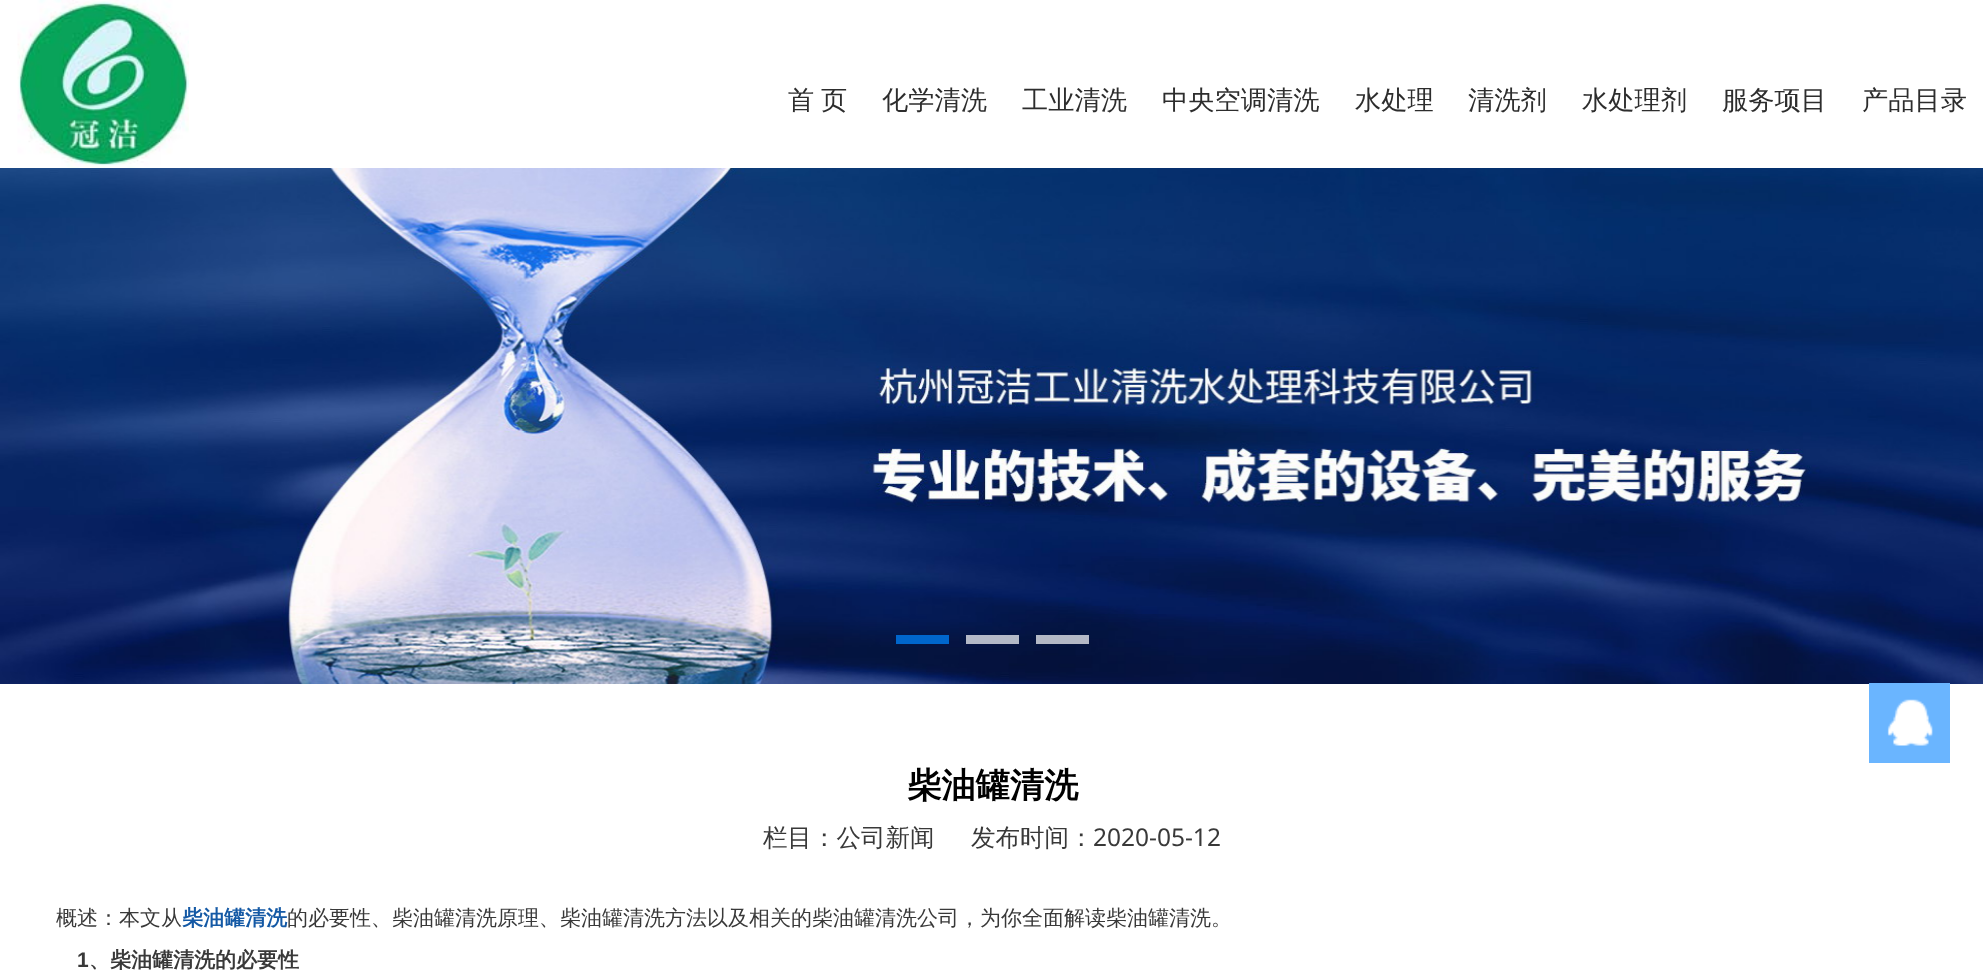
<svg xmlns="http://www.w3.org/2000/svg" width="1983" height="971">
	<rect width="100%" height="100%" fill="#FFFFFF" />
	<image x="17" y="0" width="172" height="168" href="assets/img1.png" />
	<g font-family="WenQuanYi Zen Hei" font-size="26.25" font-weight="500" fill="#2D2D2D">
		<text x="788" y="109" word-spacing="-1">首 页</text>
		<text x="882" y="109">化学清洗</text>
		<text x="1022" y="109">工业清洗</text>
		<text x="1162" y="109">中央空调清洗</text>
		<text x="1355" y="109">水处理</text>
		<text x="1468" y="109">清洗剂</text>
		<text x="1582" y="109">水处理剂</text>
		<text x="1722" y="109">服务项目</text>
		<text x="1862" y="109">产品目录</text>
	</g>
	<image x="0" y="168" width="1983" height="516" href="assets/img2.png" />
	<rect x="896" y="635" width="53" height="9" fill="#0066CC" />
	<rect x="966" y="635" width="53" height="9" fill="#FFFFFF" fill-opacity="0.7" />
	<rect x="1036" y="635" width="53" height="9" fill="#FFFFFF" fill-opacity="0.7" />
	<rect x="1869" y="683" width="81" height="80" fill="#6AB5FF" />
	<image x="1887" y="699" width="46" height="47" href="assets/img3.png" />
	<text x="907" y="797" font-family="WenQuanYi Zen Hei" font-size="34.25" font-weight="700" fill="#000000">柴油罐清洗</text>
	<g font-family="WenQuanYi Zen Hei" font-size="24.5" font-weight="500" fill="#393939">
		<text x="763" y="846">栏目：公司新闻</text>
		<text x="971" y="846">发布时间：</text>
	</g>
	<text x="1093" y="846" font-family="Noto Sans" font-size="24.5" fill="#393939">2020-05-12</text>
	<text x="56" y="925" font-family="WenQuanYi Zen Hei" font-size="21" font-weight="500" fill="#393939">概述：本文从</text>
	<text x="182" y="925" font-family="WenQuanYi Zen Hei" font-size="21" font-weight="700" fill="#1459A5">柴油罐清洗</text>
	<text x="287" y="925" font-family="WenQuanYi Zen Hei" font-size="21" font-weight="500" fill="#393939">的必要性、柴油罐清洗原理、柴油罐清洗方法以及相关的柴油罐清洗公司，为你全面解读柴油罐清洗。</text>
	<text x="77" y="967" font-family="Liberation Sans" font-size="21" font-weight="700" fill="#393939">1</text>
	<text x="89" y="967" font-family="WenQuanYi Zen Hei" font-size="21" font-weight="700" fill="#393939">、柴油罐清洗的必要性</text>
</svg>
